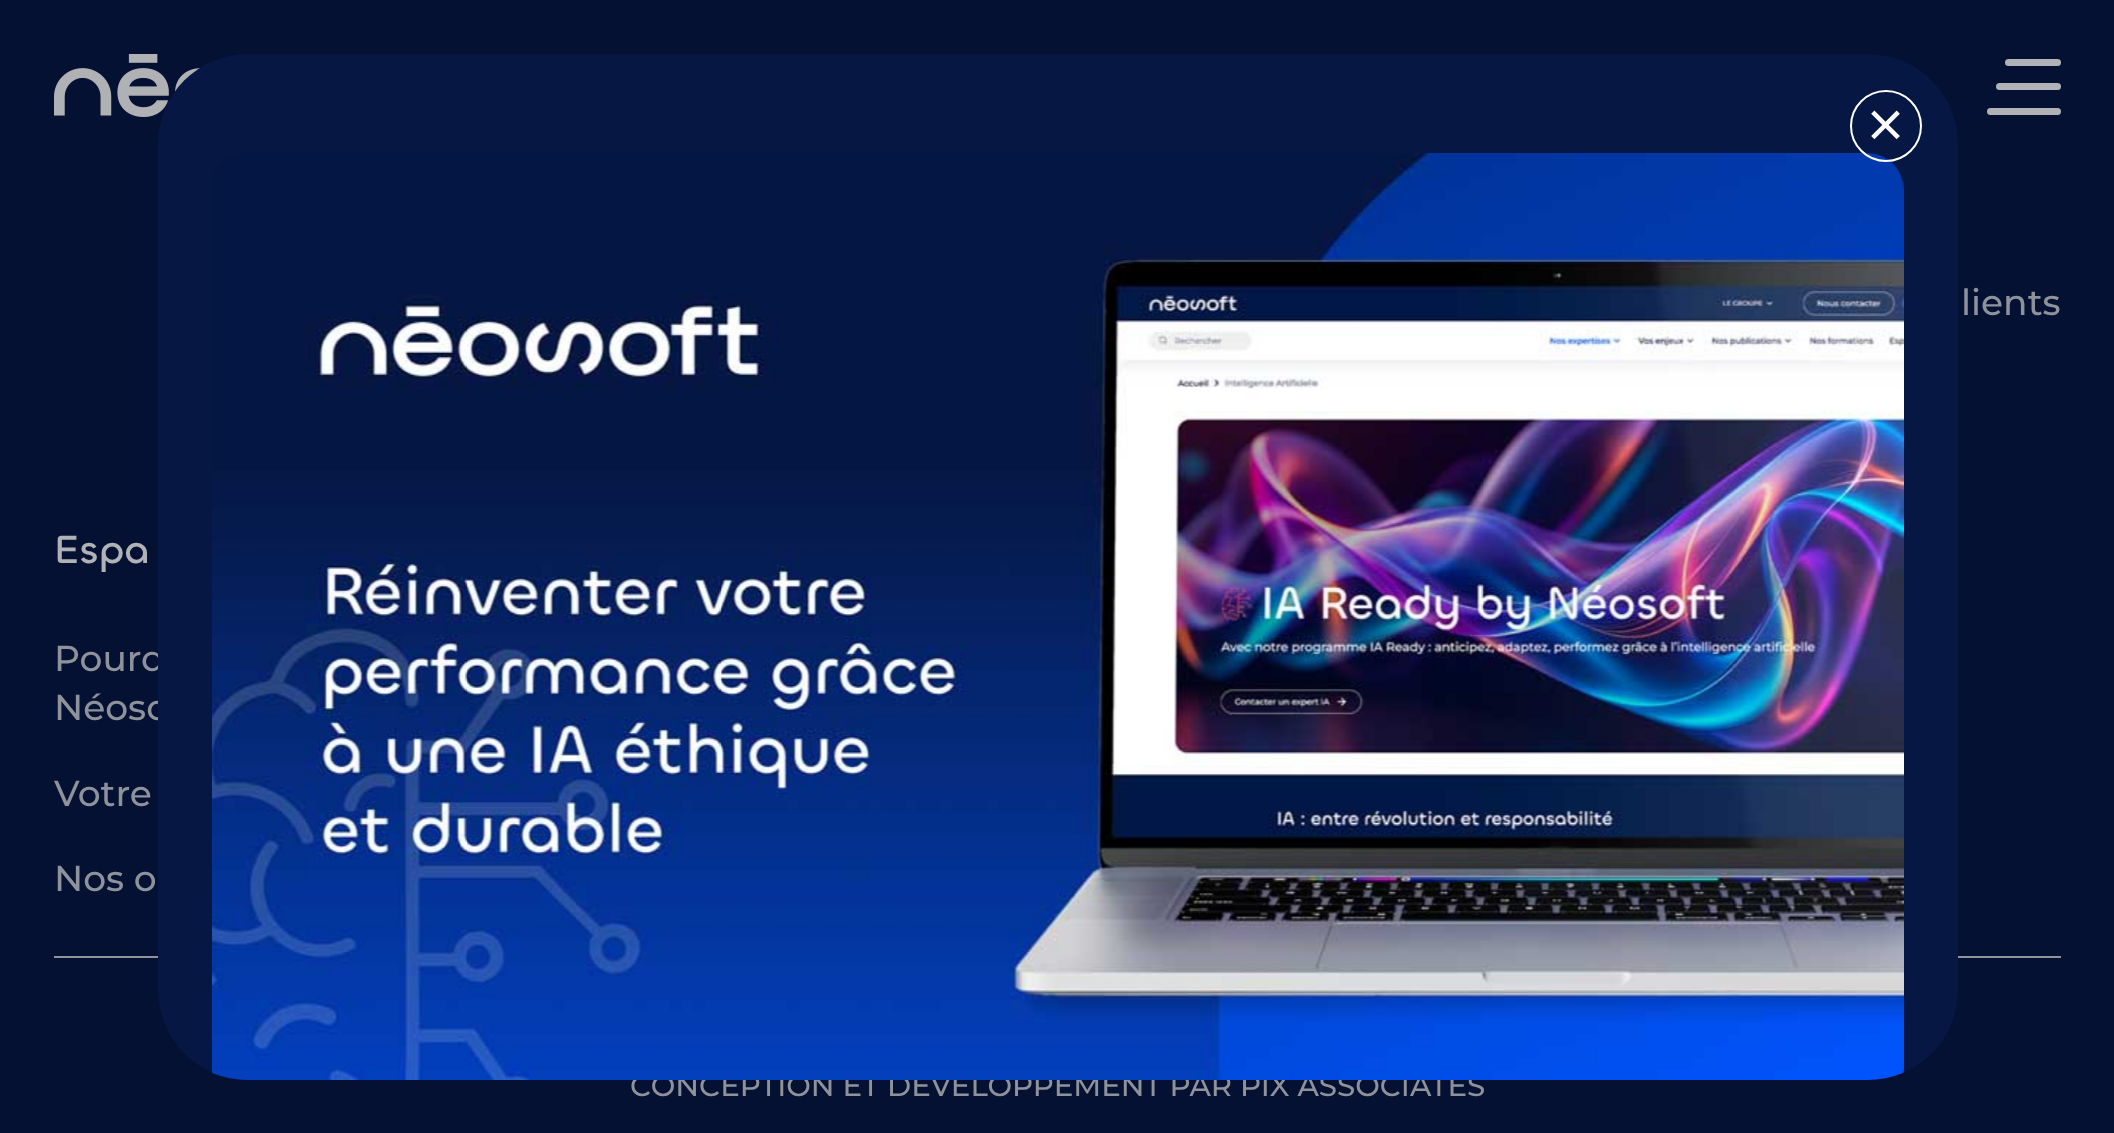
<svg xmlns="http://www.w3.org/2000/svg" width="2114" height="1133">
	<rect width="100%" height="100%" fill="#041133" />
	<image x="54" y="54" width="146" height="63" href="assets/img3.png" />
	<g font-family="Montserrat" font-size="36" font-weight="500" fill="#8E929B">
		<text x="54" y="671">Pourq</text>
		<text x="54" y="720">Néoso</text>
	</g>
	<rect x="54" y="956" width="2007" height="2" fill="#8E929B" />
	<text x="630" y="1096" font-family="Montserrat" font-size="29.25" font-weight="500" fill="#8E929B">CONCEPTION ET DÉVELOPPEMENT PAR PIX ASSOCIATES</text>
	<rect x="158" y="54" width="1800" height="1026" rx="90" fill="#051742" />
	<image x="212" y="153" width="1692" height="927" href="assets/img2.png" />
	<circle cx="1886" cy="126" r="35" fill="none" stroke="#FFFFFF" stroke-width="2" />
	<image x="1871" y="110" width="29" height="30" href="assets/img1.png" />
	<rect x="1996" y="83" width="65" height="7" rx="3.5" fill="#B0B2B5" />
	<rect x="2005" y="59" width="56" height="7" rx="3.5" fill="#B0B2B5" />
	<rect x="1987" y="108" width="74" height="7" rx="3.5" fill="#B0B2B5" />
	<text x="1961" y="315" font-family="Montserrat" font-size="36" font-weight="500" fill="#8E929B">lients</text>
	<text x="54" y="563" font-family="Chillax" font-size="40.5" font-weight="500" fill="#B0B2B5">Espa</text>
	<g font-family="Montserrat" font-size="36" font-weight="500" fill="#8E929B">
		<text x="54" y="806">Votre</text>
		<text x="54" y="891">Nos o</text>
	</g>
</svg>
